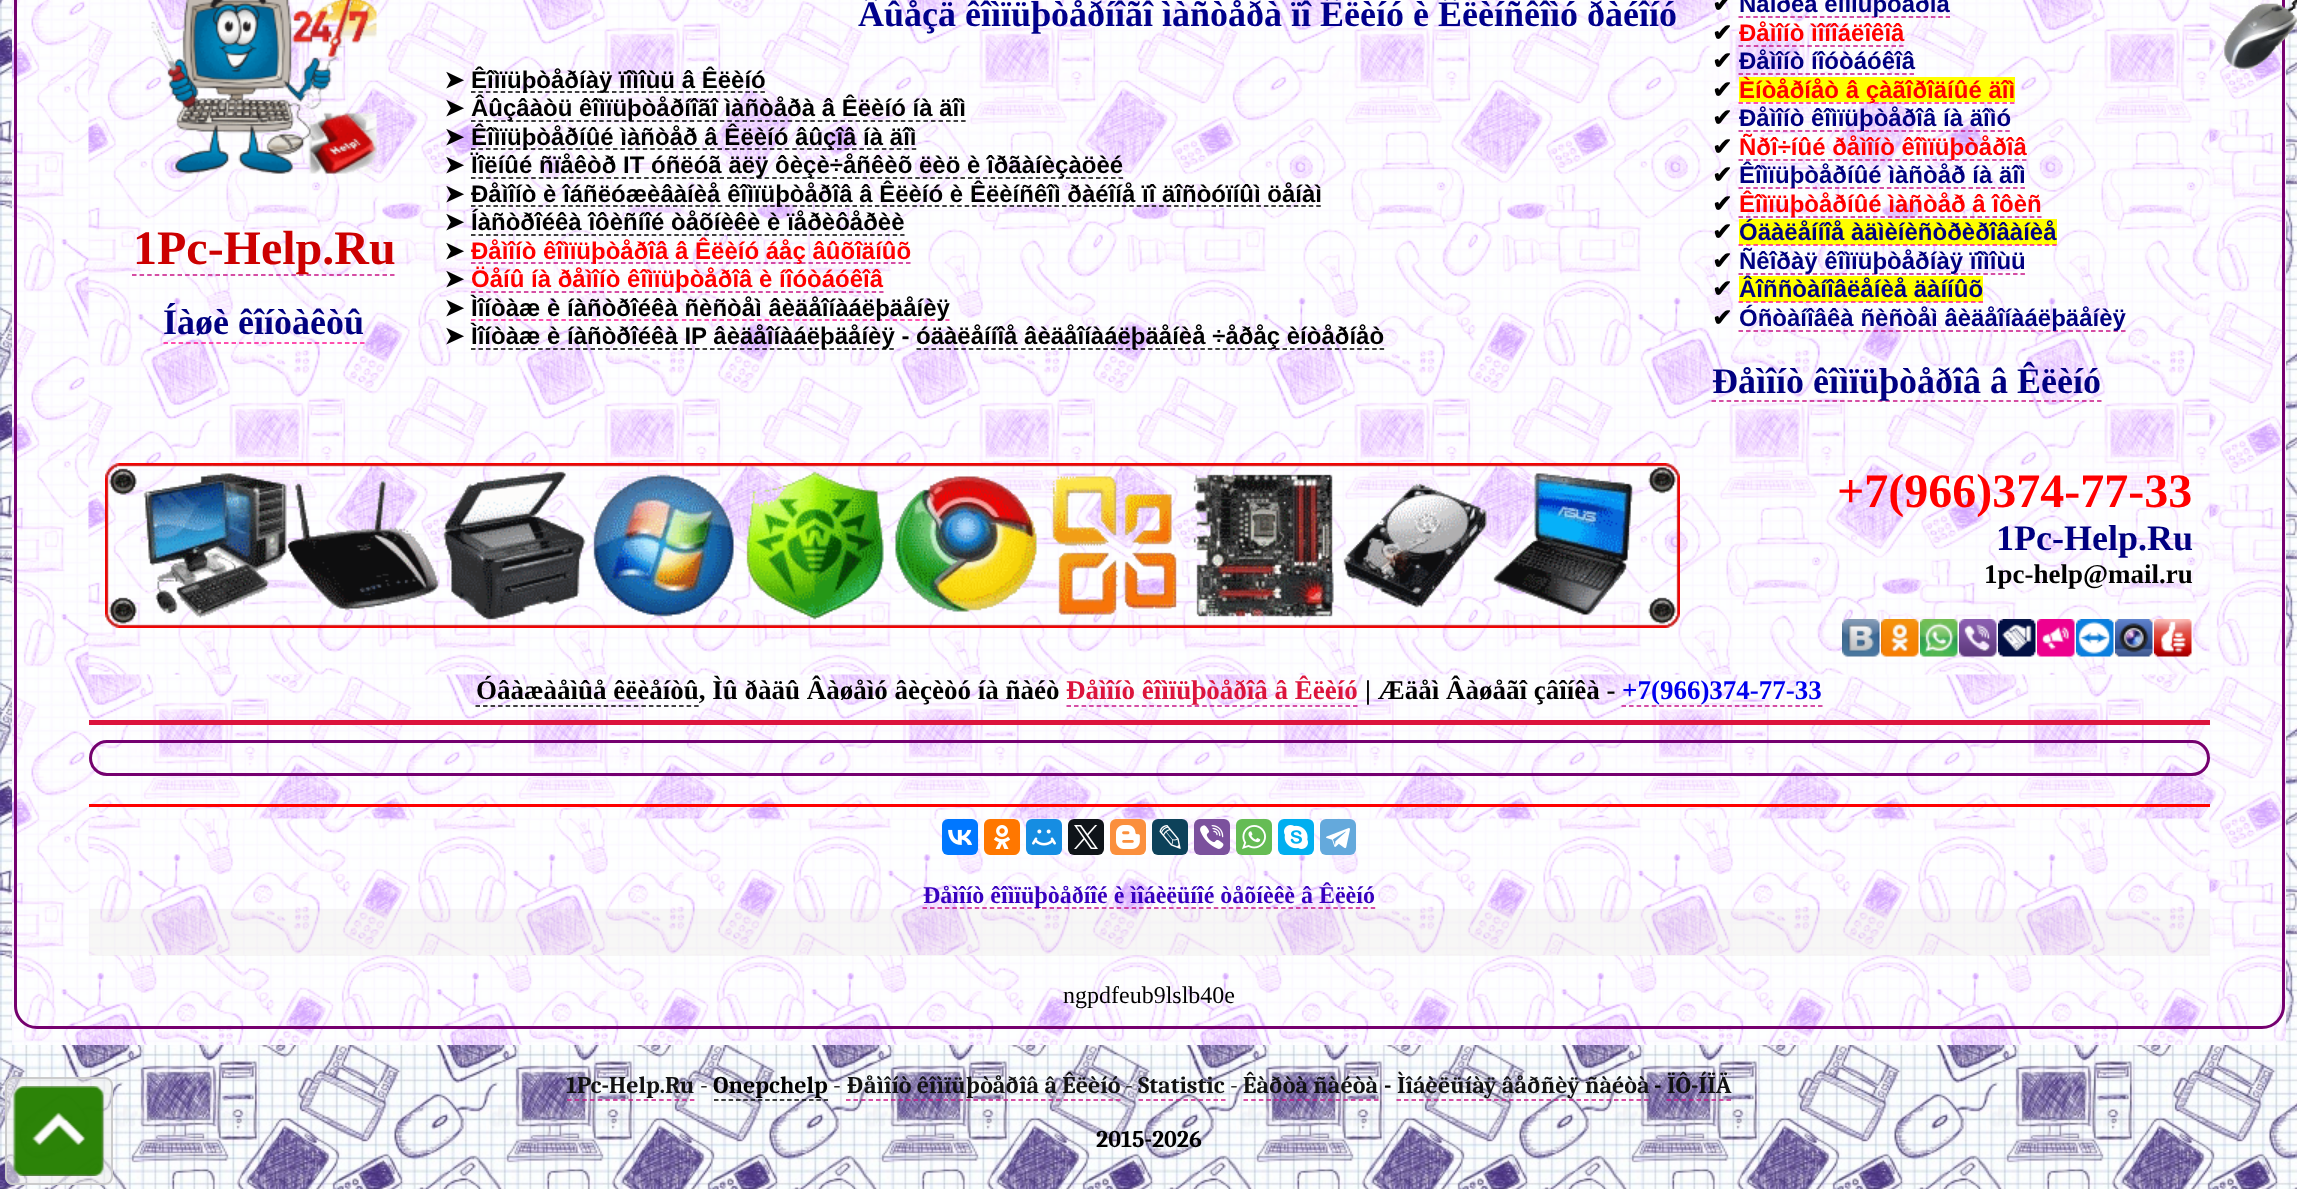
<svg xmlns="http://www.w3.org/2000/svg" width="2297" height="1189">
	<rect width="100%" height="100%" fill="#FFFFFF" />
	<image x="0" y="0" width="2297" height="1189" href="assets/img1.png" />
	<image x="12" y="0" width="2274" height="1045" href="assets/img2.png" />
	<rect x="15.5" y="-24.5" width="2268" height="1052" rx="21.5" fill="none" stroke="#75006F" stroke-width="3" />
	<image x="88" y="0" width="2122" height="675" href="assets/img3.png" />
	<image x="151" y="0" width="226" height="174" href="assets/img4.png" />
	<path d="M132 275H394.5" fill="none" stroke="#C71585" stroke-width="1.5" stroke-dasharray="4.5 3.09" />
	<text x="133" y="264" font-family="Liberation Serif" font-size="48" font-weight="700" fill="#CC0000">1Pc-Help.Ru</text>
	<text x="163" y="334" font-family="Liberation Serif" font-size="36" font-weight="700" fill="#000080">Íàøè êîíòàêòû</text>
	<path d="M163.5 343H364.5" fill="none" stroke="#FF1493" stroke-width="1.5" stroke-dasharray="4.5 3.06" />
	<text x="858" y="26" font-family="Liberation Serif" font-size="36" font-weight="700" fill="#00008B">Âûåçä êîìïüþòåðíîãî ìàñòåðà ïî Êëèíó è Êëèíñêîìó ðàéîíó</text>
	<text x="444" y="88" font-family="DejaVu Sans" font-size="24" font-weight="700" fill="#000000">➤</text>
	<path d="M471 92H765" fill="none" stroke="#000000" stroke-width="1.5" stroke-dasharray="4.5 2.92" />
	<text x="471" y="88" font-family="Liberation Sans" font-size="24" font-weight="700" fill="#000000">Êîìïüþòåðíàÿ ïîìîùü â Êëèíó</text>
	<text x="444" y="116" font-family="DejaVu Sans" font-size="24" font-weight="700" fill="#000000">➤</text>
	<path d="M471 121H966" fill="none" stroke="#000000" stroke-width="1.5" stroke-dasharray="4.5 3.04" />
	<text x="471" y="116" font-family="Liberation Sans" font-size="24" font-weight="700" fill="#000000">Âûçâàòü êîìïüþòåðíîãî ìàñòåðà â Êëèíó íà äîì</text>
	<text x="444" y="145" font-family="DejaVu Sans" font-size="24" font-weight="700" fill="#000000">➤</text>
	<path d="M471 149H916.5" fill="none" stroke="#000000" stroke-width="1.5" stroke-dasharray="4.5 2.97" />
	<text x="471" y="145" font-family="Liberation Sans" font-size="24" font-weight="700" fill="#000000">Êîìïüþòåðíûé ìàñòåð â Êëèíó âûçîâ íà äîì</text>
	<text x="444" y="173" font-family="DejaVu Sans" font-size="24" font-weight="700" fill="#000000">➤</text>
	<path d="M471 178H1123.5" fill="none" stroke="#000000" stroke-width="1.5" stroke-dasharray="4.5 3.03" />
	<text x="471" y="173" font-family="Liberation Sans" font-size="24" font-weight="700" fill="#000000">Ïîëíûé ñïåêòð IT óñëóã äëÿ ôèçè÷åñêèõ ëèö è îðãàíèçàöèé</text>
	<text x="444" y="202" font-family="DejaVu Sans" font-size="24" font-weight="700" fill="#000000">➤</text>
	<path d="M471 206H1321.5" fill="none" stroke="#000000" stroke-width="1.5" stroke-dasharray="4.5 2.98" />
	<text x="471" y="202" font-family="Liberation Sans" font-size="24" font-weight="700" fill="#000000">Ðåìîíò è îáñëóæèâàíèå êîìïüþòåðîâ â Êëèíó è Êëèíñêîì ðàéîíå ïî äîñòóïíûì öåíàì</text>
	<text x="444" y="230" font-family="DejaVu Sans" font-size="24" font-weight="700" fill="#000000">➤</text>
	<text x="471" y="230" font-family="Liberation Sans" font-size="24" font-weight="700" fill="#000000">Íàñòðîéêà îôèñíîé òåõíèêè è ïåðèôåðèè</text>
	<path d="M471 235H904.5" fill="none" stroke="#000000" stroke-width="1.5" stroke-dasharray="4.5 3.03" />
	<text x="444" y="259" font-family="DejaVu Sans" font-size="24" font-weight="700" fill="#000000">➤</text>
	<path d="M471 263H910.5" fill="none" stroke="#C71585" stroke-width="1.5" stroke-dasharray="4.5 3" />
	<text x="471" y="259" font-family="Liberation Sans" font-size="24" font-weight="700" fill="#FF0000">Ðåìîíò êîìïüþòåðîâ â Êëèíó áåç âûõîäíûõ</text>
	<text x="444" y="287" font-family="DejaVu Sans" font-size="24" font-weight="700" fill="#000000">➤</text>
	<path d="M471 292H883.5" fill="none" stroke="#C71585" stroke-width="1.5" stroke-dasharray="4.5 3.06" />
	<text x="471" y="287" font-family="Liberation Sans" font-size="24" font-weight="700" fill="#FF0000">Öåíû íà ðåìîíò êîìïüþòåðîâ è íîóòáóêîâ</text>
	<text x="444" y="316" font-family="DejaVu Sans" font-size="24" font-weight="700" fill="#000000">➤</text>
	<path d="M471 320H949.5" fill="none" stroke="#FF1493" stroke-width="1.5" stroke-dasharray="4.5 3.03" />
	<text x="471" y="316" font-family="Liberation Sans" font-size="24" font-weight="700" fill="#000000">Ìîíòàæ è íàñòðîéêà ñèñòåì âèäåîíàáëþäåíèÿ</text>
	<text x="444" y="344" font-family="DejaVu Sans" font-size="24" font-weight="700" fill="#000000">➤</text>
	<path d="M471 349H894" fill="none" stroke="#000000" stroke-width="1.5" stroke-dasharray="4.5 2.97" />
	<text x="471" y="344" font-family="Liberation Sans" font-size="24" font-weight="700" fill="#000000">Ìîíòàæ è íàñòðîéêà IP âèäåîíàáëþäåíèÿ -</text>
	<path d="M916.5 349H1384.5" fill="none" stroke="#000000" stroke-width="1.5" stroke-dasharray="4.5 2.97" />
	<text x="916" y="344" font-family="Liberation Sans" font-size="24" font-weight="700" fill="#000000">óäàëåííîå âèäåîíàáëþäåíèå ÷åðåç èíòåðíåò</text>
	<text x="1712" y="12" font-family="DejaVu Sans" font-size="24" font-weight="700" fill="#000000">✔</text>
	<path d="M1738.5 17H1950" fill="none" stroke="#C71585" stroke-width="1.5" stroke-dasharray="4.5 2.9" />
	<text x="1739" y="12" font-family="Liberation Sans" font-size="24" font-weight="700" fill="#000080">Ñáîðêà êîìïüþòåðîâ</text>
	<text x="1712" y="41" font-family="DejaVu Sans" font-size="24" font-weight="700" fill="#000000">✔</text>
	<text x="1739" y="41" font-family="Liberation Sans" font-size="24" font-weight="700" fill="#FF0000">Ðåìîíò ìîíîáëîêîâ</text>
	<text x="1712" y="69" font-family="DejaVu Sans" font-size="24" font-weight="700" fill="#000000">✔</text>
	<text x="1739" y="69" font-family="Liberation Sans" font-size="24" font-weight="700" fill="#000080">Ðåìîíò íîóòáóêîâ</text>
	<path d="M1738.5 46H1903.5" fill="none" stroke="#C71585" stroke-width="1.5" stroke-dasharray="4.5 3.15" />
	<path d="M1738.5 74H1914" fill="none" stroke="#C71585" stroke-width="1.5" stroke-dasharray="4.5 2.94" />
	<text x="1712" y="98" font-family="DejaVu Sans" font-size="24" font-weight="700" fill="#000000">✔</text>
	<rect x="1739" y="77" width="276" height="25" fill="#FFFF00" />
	<path d="M1738.5 103H2014.5" fill="none" stroke="#FF1493" stroke-width="1.5" stroke-dasharray="4.5 3.04" />
	<text x="1739" y="98" font-family="Liberation Sans" font-size="24" font-weight="700" fill="#FF0000">Èíòåðíåò â çàãîðîäíûé äîì</text>
	<text x="1712" y="126" font-family="DejaVu Sans" font-size="24" font-weight="700" fill="#000000">✔</text>
	<path d="M1738.5 131H2010" fill="none" stroke="#C71585" stroke-width="1.5" stroke-dasharray="4.5 2.91" />
	<text x="1739" y="126" font-family="Liberation Sans" font-size="24" font-weight="700" fill="#000080">Ðåìîíò êîìïüþòåðîâ íà äîìó</text>
	<text x="1712" y="155" font-family="DejaVu Sans" font-size="24" font-weight="700" fill="#000000">✔</text>
	<path d="M1738.5 160H2026.5" fill="none" stroke="#C71585" stroke-width="1.5" stroke-dasharray="4.5 2.96" />
	<text x="1739" y="155" font-family="Liberation Sans" font-size="24" font-weight="700" fill="#FF0000">Ñðî÷íûé ðåìîíò êîìïüþòåðîâ</text>
	<text x="1712" y="183" font-family="DejaVu Sans" font-size="24" font-weight="700" fill="#000000">✔</text>
	<path d="M1738.5 188H2025" fill="none" stroke="#C71585" stroke-width="1.5" stroke-dasharray="4.5 2.92" />
	<text x="1739" y="183" font-family="Liberation Sans" font-size="24" font-weight="700" fill="#000080">Êîìïüþòåðíûé ìàñòåð íà äîì</text>
	<text x="1712" y="212" font-family="DejaVu Sans" font-size="24" font-weight="700" fill="#000000">✔</text>
	<path d="M1738.5 217H2041.5" fill="none" stroke="#C71585" stroke-width="1.5" stroke-dasharray="4.5 2.97" />
	<text x="1739" y="212" font-family="Liberation Sans" font-size="24" font-weight="700" fill="#FF0000">Êîìïüþòåðíûé ìàñòåð â îôèñ</text>
	<text x="1712" y="240" font-family="DejaVu Sans" font-size="24" font-weight="700" fill="#000000">✔</text>
	<rect x="1739" y="219" width="318" height="26" fill="#FFFF00" />
	<text x="1739" y="240" font-family="Liberation Sans" font-size="24" font-weight="700" fill="#000080">Óäàëåííîå àäìèíèñòðèðîâàíèå</text>
	<path d="M1738.5 245H2056.5" fill="none" stroke="#FF1493" stroke-width="1.5" stroke-dasharray="4.5 2.97" />
	<text x="1712" y="269" font-family="DejaVu Sans" font-size="24" font-weight="700" fill="#000000">✔</text>
	<path d="M1738.5 274H2025" fill="none" stroke="#C71585" stroke-width="1.5" stroke-dasharray="4.5 2.92" />
	<text x="1739" y="269" font-family="Liberation Sans" font-size="24" font-weight="700" fill="#000080">Ñêîðàÿ êîìïüþòåðíàÿ ïîìîùü</text>
	<text x="1712" y="297" font-family="DejaVu Sans" font-size="24" font-weight="700" fill="#000000">✔</text>
	<rect x="1739" y="276" width="244" height="26" fill="#FFFF00" />
	<text x="1739" y="297" font-family="Liberation Sans" font-size="24" font-weight="700" fill="#000080">Âîññòàíîâëåíèå äàííûõ</text>
	<path d="M1738.5 302H1983" fill="none" stroke="#FF1493" stroke-width="1.5" stroke-dasharray="4.5 3" />
	<text x="1712" y="326" font-family="DejaVu Sans" font-size="24" font-weight="700" fill="#000000">✔</text>
	<path d="M1738.5 331H2125.5" fill="none" stroke="#C71585" stroke-width="1.5" stroke-dasharray="4.5 3" />
	<text x="1739" y="326" font-family="Liberation Sans" font-size="24" font-weight="700" fill="#000080">Óñòàíîâêà ñèñòåì âèäåîíàáëþäåíèÿ</text>
	<path d="M1711.5 401H2101.5" fill="none" stroke="#C71585" stroke-width="1.5" stroke-dasharray="4.5 3.06" />
	<text x="1712" y="393" font-family="Liberation Serif" font-size="36" font-weight="700" fill="#000080">Ðåìîíò êîìïüþòåðîâ â Êëèíó</text>
	<image x="105" y="463" width="1575" height="165" href="assets/img5.png" />
	<text x="1837" y="507" font-family="Liberation Serif" font-size="48" font-weight="700" fill="#FF0000">+7(966)374-77-33</text>
	<text x="1996" y="550" font-family="Liberation Serif" font-size="36" font-weight="700" fill="#000080">1Pc-Help.Ru</text>
	<text x="1984" y="583" font-family="Liberation Serif" font-size="27" font-weight="700" fill="#000000">1pc-help@mail.ru</text>
	<image x="1842" y="619" width="38" height="38" href="assets/img6.png" />
	<image x="1881" y="619" width="38" height="38" href="assets/img7.png" />
	<image x="1920" y="619" width="38" height="38" href="assets/img8.png" />
	<image x="1959" y="619" width="38" height="38" href="assets/img9.png" />
	<image x="1998" y="619" width="38" height="38" href="assets/img10.png" />
	<image x="2037" y="619" width="38" height="38" href="assets/img11.png" />
	<image x="2076" y="619" width="38" height="38" href="assets/img12.png" />
	<image x="2115" y="619" width="38" height="38" href="assets/img13.png" />
	<image x="2154" y="619" width="38" height="38" href="assets/img14.png" />
	<text x="476" y="699" font-family="Liberation Serif" font-size="27" font-weight="700" fill="#000000">Óâàæàåìûå êëèåíòû, Ìû ðàäû Âàøåìó âèçèòó íà ñàéò</text>
	<path d="M475.5 706H699" fill="none" stroke="#000000" stroke-width="1.5" stroke-dasharray="4.5 3.04" />
	<text x="1066" y="699" font-family="Liberation Serif" font-size="27" font-weight="700" fill="#DC143C">Ðåìîíò êîìïüþòåðîâ â Êëèíó</text>
	<path d="M1066.5 706H1357.5" fill="none" stroke="#C71585" stroke-width="1.5" stroke-dasharray="4.5 3.04" />
	<text x="1365" y="699" font-family="Liberation Serif" font-size="27" font-weight="700" fill="#000000">| Æäåì Âàøåãî çâîíêà -</text>
	<text x="1622" y="699" font-family="Liberation Serif" font-size="27" font-weight="700" fill="#0000EE">+7(966)374-77-33</text>
	<path d="M1621.5 706H1822.5" fill="none" stroke="#C71585" stroke-width="1.5" stroke-dasharray="4.5 3.06" />
	<rect x="89" y="720" width="2121" height="5" fill="#DC143C" />
	<rect x="90.5" y="741.5" width="2118" height="33" rx="16.5" fill="none" stroke="#75006F" stroke-width="3" />
	<rect x="89" y="804" width="2121" height="3" fill="#FF0000" />
	<image x="88" y="818" width="2122" height="137" href="assets/img15.png" />
	<rect x="942" y="819" width="36" height="36" rx="6" fill="#0077FF" />
	<image x="948" y="829" width="24" height="16" href="assets/img16.png" />
	<rect x="984" y="819" width="36" height="36" rx="6" fill="#FF7700" />
	<image x="994" y="825" width="17" height="24" href="assets/img17.png" />
	<rect x="1026" y="819" width="36" height="36" rx="6" fill="#168DE2" />
	<image x="1032" y="829" width="24" height="17" href="assets/img18.png" />
	<rect x="1068" y="819" width="36" height="36" rx="6" fill="#0F1419" />
	<image x="1074" y="825" width="24" height="24" href="assets/img19.png" />
	<rect x="1110" y="819" width="36" height="36" rx="6" fill="#FB8F3D" />
	<image x="1116" y="825" width="24" height="24" href="assets/img20.png" />
	<rect x="1152" y="819" width="36" height="36" rx="6" fill="#0D425A" />
	<image x="1159" y="825" width="22" height="24" href="assets/img21.png" />
	<rect x="1194" y="819" width="36" height="36" rx="6" fill="#7B519D" />
	<image x="1200" y="825" width="24" height="24" href="assets/img22.png" />
	<rect x="1236" y="819" width="36" height="36" rx="6" fill="#65BC54" />
	<image x="1242" y="825" width="24" height="24" href="assets/img23.png" />
	<rect x="1278" y="819" width="36" height="36" rx="6" fill="#00AFF0" />
	<image x="1284" y="825" width="24" height="24" href="assets/img24.png" />
	<rect x="1320" y="819" width="36" height="36" rx="6" fill="#64A9DC" />
	<image x="1326" y="828" width="24" height="21" href="assets/img25.png" />
	<path d="M922.5 908H1375.5" fill="none" stroke="#C71585" stroke-width="1.5" stroke-dasharray="4.5 2.97" />
	<text x="923" y="903" font-family="Liberation Serif" font-size="24" font-weight="700" fill="#3700BE">Ðåìîíò êîìïüþòåðíîé è ìîáèëüíîé òåõíèêè â Êëèíó</text>
	<rect x="89" y="909" width="2121" height="47" fill="#DDD6D0" fill-opacity="0.2" />
	<image x="2224" y="0" width="73" height="69" href="assets/img26.png" />
	<text x="1063" y="1003" font-family="Liberation Serif" font-size="24" fill="#000000">ngpdfeub9lslb40e</text>
	<rect x="5" y="1077" width="108" height="108" rx="8" fill="#EEEEEE" fill-opacity="0.58" />
	<rect x="6" y="1078" width="106" height="106" rx="7" fill="none" stroke="#C9C9C9" stroke-opacity="0.97" stroke-width="2" />
	<image x="13" y="1086" width="91" height="90" href="assets/img27.png" />
	<text x="566" y="1093" font-family="Caladea" font-size="24" font-weight="700" fill="#111111">1Pc-Help.Ru</text>
	<path d="M567 1100H694.5" fill="none" stroke="#C71585" stroke-width="1.5" stroke-dasharray="4.5 3.18" />
	<text x="700" y="1093" font-family="Caladea" font-size="24" fill="#000000">-</text>
	<text x="713" y="1093" font-family="Caladea" font-size="24" font-weight="700" fill="#000000">Onepchelp</text>
	<path d="M714 1100H828" fill="none" stroke="#000000" stroke-width="1.5" stroke-dasharray="4.5 2.81" />
	<text x="833" y="1093" font-family="Caladea" font-size="24" fill="#000000">-</text>
	<text x="847" y="1093" font-family="Caladea" font-size="24" font-weight="700" fill="#111111">Ðåìîíò êîìïüþòåðîâ â Êëèíó</text>
	<path d="M846 1100H1120.5" fill="none" stroke="#C71585" stroke-width="1.5" stroke-dasharray="4.5 3" />
	<text x="1125" y="1093" font-family="Caladea" font-size="24" fill="#000000">-</text>
	<text x="1138" y="1093" font-family="Caladea" font-size="24" font-weight="700" fill="#111111">Statistic</text>
	<path d="M1138.5 1100H1225.5" fill="none" stroke="#C71585" stroke-width="1.5" stroke-dasharray="4.5 3" />
	<text x="1230" y="1093" font-family="Caladea" font-size="24" fill="#000000">-</text>
	<path d="M1243.5 1100H1378.5" fill="none" stroke="#C71585" stroke-width="1.5" stroke-dasharray="4.5 3.18" />
	<text x="1243" y="1093" font-family="Caladea" font-size="24" font-weight="700" fill="#111111">Êàðòà ñàéòà</text>
	<text x="1384" y="1093" font-family="Caladea" font-size="24" font-weight="700" fill="#000000">-</text>
	<text x="1397" y="1093" font-family="Caladea" font-size="24" font-weight="700" fill="#111111">Ìîáèëüíàÿ âåðñèÿ ñàéòà</text>
	<path d="M1396.5 1100H1648.5" fill="none" stroke="#C71585" stroke-width="1.5" stroke-dasharray="4.5 3" />
	<text x="1654" y="1093" font-family="Caladea" font-size="24" font-weight="700" fill="#000000">-</text>
	<path d="M1666.5 1100H1731" fill="none" stroke="#C71585" stroke-width="1.5" stroke-dasharray="4.5 3" />
	<text x="1667" y="1093" font-family="Caladea" font-size="24" font-weight="700" fill="#111111">ÏÔ-ÍÏÄ</text>
	<text x="1096" y="1147" font-family="Caladea" font-size="24" font-weight="700" fill="#000000">2015-2026</text>
</svg>
